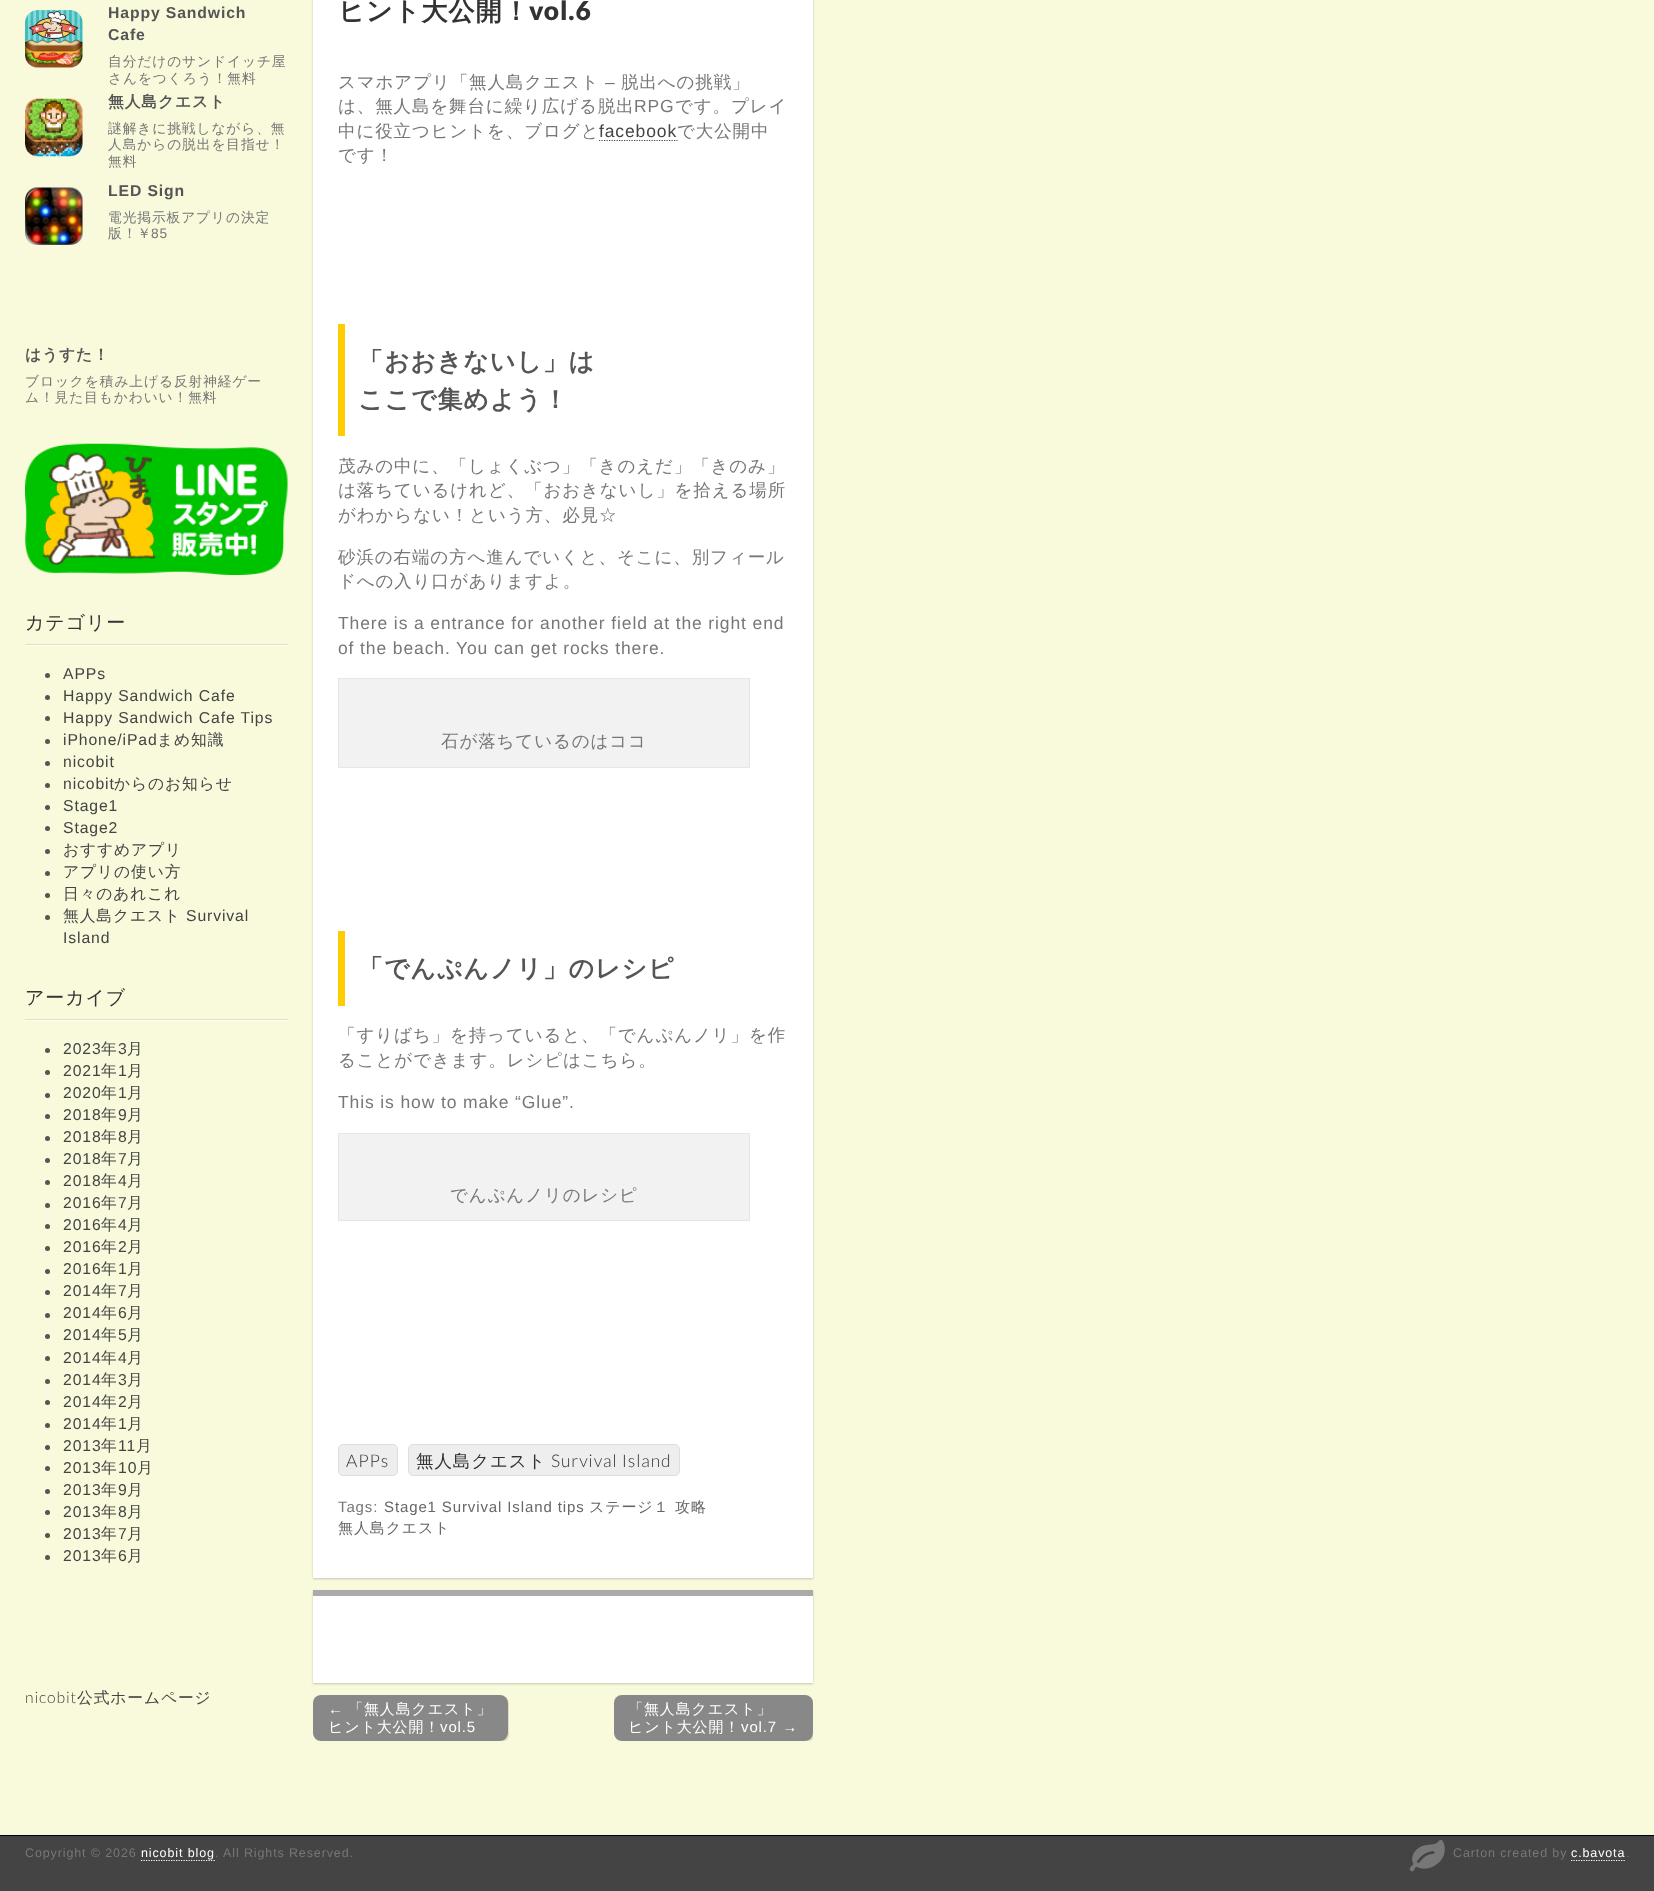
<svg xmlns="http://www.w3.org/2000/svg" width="1654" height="1891">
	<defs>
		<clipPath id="clip1"><rect x="313" y="1695" width="500" height="46" /></clipPath>
	</defs>
	<rect width="100%" height="100%" fill="#F9F9DB" />
	<image x="25" y="10" width="58" height="58" href="assets/img1.png" />
	<g font-family="Liberation Sans" font-size="15.75" font-weight="700" letter-spacing="0.88" fill="#555555">
		<text x="108" y="18">Happy Sandwich</text>
		<text x="108" y="40">Cafe</text>
	</g>
	<g font-family="WenQuanYi Zen Hei" font-size="13.75" font-weight="500" letter-spacing="0.88" fill="#777777">
		<text x="108" y="66">自分だけのサンドイッチ屋</text>
		<text x="108" y="83">さんをつくろう！無料</text>
	</g>
	<image x="25" y="98" width="58" height="59" href="assets/img2.png" />
	<text x="108" y="107" font-family="WenQuanYi Zen Hei" font-size="15.75" font-weight="700" letter-spacing="0.88" fill="#555555">無人島クエスト</text>
	<g font-family="WenQuanYi Zen Hei" font-size="13.75" font-weight="500" letter-spacing="0.88" fill="#777777">
		<text x="108" y="133">謎解きに挑戦しながら、無</text>
		<text x="108" y="149">人島からの脱出を目指せ！</text>
		<text x="108" y="166">無料</text>
	</g>
	<image x="25" y="187" width="58" height="58" href="assets/img3.png" />
	<text x="108" y="196" font-family="Liberation Sans" font-size="15.75" font-weight="700" letter-spacing="0.88" fill="#555555">LED Sign</text>
	<g font-family="WenQuanYi Zen Hei" font-size="13.75" font-weight="500" letter-spacing="0.88" fill="#777777">
		<text x="108" y="222">電光掲示板アプリの決定</text>
		<text x="108" y="238">版！￥</text>
	</g>
	<text x="151" y="238" font-family="Liberation Sans" font-size="13.75" letter-spacing="0.88" fill="#777777">85</text>
	<text x="25" y="360" font-family="WenQuanYi Zen Hei" font-size="15.75" font-weight="700" letter-spacing="0.88" fill="#555555">はうすた！</text>
	<g font-family="WenQuanYi Zen Hei" font-size="13.75" font-weight="500" letter-spacing="0.88" fill="#777777">
		<text x="25" y="386">ブロックを積み上げる反射神経ゲー</text>
		<text x="25" y="402">ム！見た目もかわいい！無料</text>
	</g>
	<image x="25" y="443" width="263" height="132" href="assets/img4.png" />
	<path d="M25 645V646H288V614V645Z" fill="#FEFEF8" />
	<rect x="25" y="644" width="263" height="1" fill="#E0E0C5" />
	<text x="25" y="629" font-family="WenQuanYi Zen Hei" font-size="19" font-weight="500" letter-spacing="0.88" fill="#333333">カテゴリー</text>
	<circle cx="47.5" cy="675.5" r="2.5" fill="#555555" />
	<text x="63" y="679" font-family="Liberation Sans" font-size="15.75" letter-spacing="0.88" fill="#444444">APPs</text>
	<circle cx="47.5" cy="697.5" r="2.5" fill="#555555" />
	<text x="63" y="701" font-family="Liberation Sans" font-size="15.75" letter-spacing="0.88" fill="#444444">Happy Sandwich Cafe</text>
	<circle cx="47.5" cy="718.5" r="2.5" fill="#555555" />
	<text x="63" y="723" font-family="Liberation Sans" font-size="15.75" letter-spacing="0.88" fill="#444444">Happy Sandwich Cafe Tips</text>
	<circle cx="47.5" cy="741.5" r="2.5" fill="#555555" />
	<text x="63" y="745" font-family="Liberation Sans" font-size="15.75" letter-spacing="0.88" fill="#444444">iPhone/iPad</text>
	<text x="157" y="745" font-family="WenQuanYi Zen Hei" font-size="15.75" font-weight="500" letter-spacing="0.88" fill="#444444">まめ知識</text>
	<circle cx="47.5" cy="763.5" r="2.5" fill="#555555" />
	<text x="63" y="767" font-family="Liberation Sans" font-size="15.75" letter-spacing="0.88" fill="#444444">nicobit</text>
	<circle cx="47.5" cy="785.5" r="2.5" fill="#555555" />
	<text x="63" y="789" font-family="Liberation Sans" font-size="15.75" letter-spacing="0.88" fill="#444444">nicobit</text>
	<text x="114" y="789" font-family="WenQuanYi Zen Hei" font-size="15.75" font-weight="500" letter-spacing="0.88" fill="#444444">からのお知らせ</text>
	<circle cx="47.5" cy="807.5" r="2.5" fill="#555555" />
	<text x="63" y="811" font-family="Liberation Sans" font-size="15.75" letter-spacing="0.88" fill="#444444">Stage1</text>
	<circle cx="47.5" cy="828.5" r="2.5" fill="#555555" />
	<text x="63" y="833" font-family="Liberation Sans" font-size="15.75" letter-spacing="0.88" fill="#444444">Stage2</text>
	<circle cx="47.5" cy="851.5" r="2.5" fill="#555555" />
	<text x="63" y="855" font-family="WenQuanYi Zen Hei" font-size="15.75" font-weight="500" letter-spacing="0.88" fill="#444444">おすすめアプリ</text>
	<circle cx="47.5" cy="873.5" r="2.5" fill="#555555" />
	<text x="63" y="877" font-family="WenQuanYi Zen Hei" font-size="15.75" font-weight="500" letter-spacing="0.88" fill="#444444">アプリの使い方</text>
	<circle cx="47.5" cy="895.5" r="2.5" fill="#555555" />
	<text x="63" y="899" font-family="WenQuanYi Zen Hei" font-size="15.75" font-weight="500" letter-spacing="0.88" fill="#444444">日々のあれこれ</text>
	<circle cx="47.5" cy="917.5" r="2.5" fill="#555555" />
	<text x="63" y="921" font-family="WenQuanYi Zen Hei" font-size="15.75" font-weight="500" letter-spacing="0.88" fill="#444444">無人島クエスト</text>
	<g font-family="Liberation Sans" font-size="15.75" letter-spacing="0.88" fill="#444444">
		<text x="186" y="921">Survival</text>
		<text x="63" y="943">Island</text>
	</g>
	<path d="M25 1020V1021H288V989V1020Z" fill="#FEFEF8" />
	<rect x="25" y="1019" width="263" height="1" fill="#E0E0C5" />
	<text x="25" y="1004" font-family="WenQuanYi Zen Hei" font-size="19" font-weight="500" letter-spacing="0.88" fill="#333333">アーカイブ</text>
	<circle cx="47.5" cy="1050.5" r="2.5" fill="#555555" />
	<text x="63" y="1054" font-family="Liberation Sans" font-size="15.75" letter-spacing="0.88" fill="#444444">2023</text>
	<text x="101" y="1054" font-family="WenQuanYi Zen Hei" font-size="15.75" font-weight="500" letter-spacing="0.88" fill="#444444">年</text>
	<text x="118" y="1054" font-family="Liberation Sans" font-size="15.75" letter-spacing="0.88" fill="#444444">3</text>
	<text x="127" y="1054" font-family="WenQuanYi Zen Hei" font-size="15.75" font-weight="500" letter-spacing="0.88" fill="#444444">月</text>
	<circle cx="47.5" cy="1072.5" r="2.5" fill="#555555" />
	<text x="63" y="1076" font-family="Liberation Sans" font-size="15.75" letter-spacing="0.88" fill="#444444">2021</text>
	<text x="101" y="1076" font-family="WenQuanYi Zen Hei" font-size="15.75" font-weight="500" letter-spacing="0.88" fill="#444444">年</text>
	<text x="118" y="1076" font-family="Liberation Sans" font-size="15.75" letter-spacing="0.88" fill="#444444">1</text>
	<text x="127" y="1076" font-family="WenQuanYi Zen Hei" font-size="15.75" font-weight="500" letter-spacing="0.88" fill="#444444">月</text>
	<circle cx="47.5" cy="1095.5" r="2.5" fill="#555555" />
	<text x="63" y="1098" font-family="Liberation Sans" font-size="15.75" letter-spacing="0.88" fill="#444444">2020</text>
	<text x="101" y="1098" font-family="WenQuanYi Zen Hei" font-size="15.75" font-weight="500" letter-spacing="0.88" fill="#444444">年</text>
	<text x="118" y="1098" font-family="Liberation Sans" font-size="15.75" letter-spacing="0.88" fill="#444444">1</text>
	<text x="127" y="1098" font-family="WenQuanYi Zen Hei" font-size="15.75" font-weight="500" letter-spacing="0.88" fill="#444444">月</text>
	<circle cx="47.5" cy="1116.5" r="2.5" fill="#555555" />
	<text x="63" y="1120" font-family="Liberation Sans" font-size="15.75" letter-spacing="0.88" fill="#444444">2018</text>
	<text x="101" y="1120" font-family="WenQuanYi Zen Hei" font-size="15.75" font-weight="500" letter-spacing="0.88" fill="#444444">年</text>
	<text x="118" y="1120" font-family="Liberation Sans" font-size="15.75" letter-spacing="0.88" fill="#444444">9</text>
	<text x="127" y="1120" font-family="WenQuanYi Zen Hei" font-size="15.75" font-weight="500" letter-spacing="0.88" fill="#444444">月</text>
	<circle cx="47.5" cy="1138.5" r="2.5" fill="#555555" />
	<text x="63" y="1142" font-family="Liberation Sans" font-size="15.75" letter-spacing="0.88" fill="#444444">2018</text>
	<text x="101" y="1142" font-family="WenQuanYi Zen Hei" font-size="15.75" font-weight="500" letter-spacing="0.88" fill="#444444">年</text>
	<text x="118" y="1142" font-family="Liberation Sans" font-size="15.75" letter-spacing="0.88" fill="#444444">8</text>
	<text x="127" y="1142" font-family="WenQuanYi Zen Hei" font-size="15.75" font-weight="500" letter-spacing="0.88" fill="#444444">月</text>
	<circle cx="47.5" cy="1160.5" r="2.5" fill="#555555" />
	<text x="63" y="1164" font-family="Liberation Sans" font-size="15.75" letter-spacing="0.88" fill="#444444">2018</text>
	<text x="101" y="1164" font-family="WenQuanYi Zen Hei" font-size="15.75" font-weight="500" letter-spacing="0.88" fill="#444444">年</text>
	<text x="118" y="1164" font-family="Liberation Sans" font-size="15.75" letter-spacing="0.88" fill="#444444">7</text>
	<text x="127" y="1164" font-family="WenQuanYi Zen Hei" font-size="15.75" font-weight="500" letter-spacing="0.88" fill="#444444">月</text>
	<circle cx="47.5" cy="1182.5" r="2.5" fill="#555555" />
	<text x="63" y="1186" font-family="Liberation Sans" font-size="15.75" letter-spacing="0.88" fill="#444444">2018</text>
	<text x="101" y="1186" font-family="WenQuanYi Zen Hei" font-size="15.75" font-weight="500" letter-spacing="0.88" fill="#444444">年</text>
	<text x="118" y="1186" font-family="Liberation Sans" font-size="15.75" letter-spacing="0.88" fill="#444444">4</text>
	<text x="127" y="1186" font-family="WenQuanYi Zen Hei" font-size="15.75" font-weight="500" letter-spacing="0.88" fill="#444444">月</text>
	<circle cx="47.5" cy="1205.5" r="2.5" fill="#555555" />
	<text x="63" y="1208" font-family="Liberation Sans" font-size="15.75" letter-spacing="0.88" fill="#444444">2016</text>
	<text x="101" y="1208" font-family="WenQuanYi Zen Hei" font-size="15.75" font-weight="500" letter-spacing="0.88" fill="#444444">年</text>
	<text x="118" y="1208" font-family="Liberation Sans" font-size="15.75" letter-spacing="0.88" fill="#444444">7</text>
	<text x="127" y="1208" font-family="WenQuanYi Zen Hei" font-size="15.75" font-weight="500" letter-spacing="0.88" fill="#444444">月</text>
	<circle cx="47.5" cy="1226.5" r="2.5" fill="#555555" />
	<text x="63" y="1230" font-family="Liberation Sans" font-size="15.75" letter-spacing="0.88" fill="#444444">2016</text>
	<text x="101" y="1230" font-family="WenQuanYi Zen Hei" font-size="15.75" font-weight="500" letter-spacing="0.88" fill="#444444">年</text>
	<text x="118" y="1230" font-family="Liberation Sans" font-size="15.75" letter-spacing="0.88" fill="#444444">4</text>
	<text x="127" y="1230" font-family="WenQuanYi Zen Hei" font-size="15.75" font-weight="500" letter-spacing="0.88" fill="#444444">月</text>
	<circle cx="47.5" cy="1248.5" r="2.5" fill="#555555" />
	<text x="63" y="1252" font-family="Liberation Sans" font-size="15.75" letter-spacing="0.88" fill="#444444">2016</text>
	<text x="101" y="1252" font-family="WenQuanYi Zen Hei" font-size="15.75" font-weight="500" letter-spacing="0.88" fill="#444444">年</text>
	<text x="118" y="1252" font-family="Liberation Sans" font-size="15.75" letter-spacing="0.88" fill="#444444">2</text>
	<text x="127" y="1252" font-family="WenQuanYi Zen Hei" font-size="15.75" font-weight="500" letter-spacing="0.88" fill="#444444">月</text>
	<circle cx="47.5" cy="1271.5" r="2.5" fill="#555555" />
	<text x="63" y="1274" font-family="Liberation Sans" font-size="15.75" letter-spacing="0.88" fill="#444444">2016</text>
	<text x="101" y="1274" font-family="WenQuanYi Zen Hei" font-size="15.75" font-weight="500" letter-spacing="0.88" fill="#444444">年</text>
	<text x="118" y="1274" font-family="Liberation Sans" font-size="15.75" letter-spacing="0.88" fill="#444444">1</text>
	<text x="127" y="1274" font-family="WenQuanYi Zen Hei" font-size="15.75" font-weight="500" letter-spacing="0.88" fill="#444444">月</text>
	<circle cx="47.5" cy="1292.5" r="2.5" fill="#555555" />
	<text x="63" y="1296" font-family="Liberation Sans" font-size="15.75" letter-spacing="0.88" fill="#444444">2014</text>
	<text x="101" y="1296" font-family="WenQuanYi Zen Hei" font-size="15.75" font-weight="500" letter-spacing="0.88" fill="#444444">年</text>
	<text x="118" y="1296" font-family="Liberation Sans" font-size="15.75" letter-spacing="0.88" fill="#444444">7</text>
	<text x="127" y="1296" font-family="WenQuanYi Zen Hei" font-size="15.75" font-weight="500" letter-spacing="0.88" fill="#444444">月</text>
	<circle cx="47.5" cy="1315.5" r="2.5" fill="#555555" />
	<text x="63" y="1318" font-family="Liberation Sans" font-size="15.75" letter-spacing="0.88" fill="#444444">2014</text>
	<text x="101" y="1318" font-family="WenQuanYi Zen Hei" font-size="15.75" font-weight="500" letter-spacing="0.88" fill="#444444">年</text>
	<text x="118" y="1318" font-family="Liberation Sans" font-size="15.75" letter-spacing="0.88" fill="#444444">6</text>
	<text x="127" y="1318" font-family="WenQuanYi Zen Hei" font-size="15.75" font-weight="500" letter-spacing="0.88" fill="#444444">月</text>
	<circle cx="47.5" cy="1336.5" r="2.5" fill="#555555" />
	<text x="63" y="1340" font-family="Liberation Sans" font-size="15.75" letter-spacing="0.88" fill="#444444">2014</text>
	<text x="101" y="1340" font-family="WenQuanYi Zen Hei" font-size="15.75" font-weight="500" letter-spacing="0.88" fill="#444444">年</text>
	<text x="118" y="1340" font-family="Liberation Sans" font-size="15.75" letter-spacing="0.88" fill="#444444">5</text>
	<text x="127" y="1340" font-family="WenQuanYi Zen Hei" font-size="15.75" font-weight="500" letter-spacing="0.88" fill="#444444">月</text>
	<circle cx="47.5" cy="1358.5" r="2.5" fill="#555555" />
	<text x="63" y="1363" font-family="Liberation Sans" font-size="15.75" letter-spacing="0.88" fill="#444444">2014</text>
	<text x="101" y="1363" font-family="WenQuanYi Zen Hei" font-size="15.75" font-weight="500" letter-spacing="0.88" fill="#444444">年</text>
	<text x="118" y="1363" font-family="Liberation Sans" font-size="15.75" letter-spacing="0.88" fill="#444444">4</text>
	<text x="127" y="1363" font-family="WenQuanYi Zen Hei" font-size="15.75" font-weight="500" letter-spacing="0.88" fill="#444444">月</text>
	<circle cx="47.5" cy="1381.5" r="2.5" fill="#555555" />
	<text x="63" y="1385" font-family="Liberation Sans" font-size="15.75" letter-spacing="0.88" fill="#444444">2014</text>
	<text x="101" y="1385" font-family="WenQuanYi Zen Hei" font-size="15.75" font-weight="500" letter-spacing="0.88" fill="#444444">年</text>
	<text x="118" y="1385" font-family="Liberation Sans" font-size="15.75" letter-spacing="0.88" fill="#444444">3</text>
	<text x="127" y="1385" font-family="WenQuanYi Zen Hei" font-size="15.75" font-weight="500" letter-spacing="0.88" fill="#444444">月</text>
	<circle cx="47.5" cy="1402.5" r="2.5" fill="#555555" />
	<text x="63" y="1407" font-family="Liberation Sans" font-size="15.75" letter-spacing="0.88" fill="#444444">2014</text>
	<text x="101" y="1407" font-family="WenQuanYi Zen Hei" font-size="15.75" font-weight="500" letter-spacing="0.88" fill="#444444">年</text>
	<text x="118" y="1407" font-family="Liberation Sans" font-size="15.75" letter-spacing="0.88" fill="#444444">2</text>
	<text x="127" y="1407" font-family="WenQuanYi Zen Hei" font-size="15.75" font-weight="500" letter-spacing="0.88" fill="#444444">月</text>
	<circle cx="47.5" cy="1425.5" r="2.5" fill="#555555" />
	<text x="63" y="1429" font-family="Liberation Sans" font-size="15.75" letter-spacing="0.88" fill="#444444">2014</text>
	<text x="101" y="1429" font-family="WenQuanYi Zen Hei" font-size="15.75" font-weight="500" letter-spacing="0.88" fill="#444444">年</text>
	<text x="118" y="1429" font-family="Liberation Sans" font-size="15.75" letter-spacing="0.88" fill="#444444">1</text>
	<text x="127" y="1429" font-family="WenQuanYi Zen Hei" font-size="15.75" font-weight="500" letter-spacing="0.88" fill="#444444">月</text>
	<circle cx="47.5" cy="1447.5" r="2.5" fill="#555555" />
	<text x="63" y="1451" font-family="Liberation Sans" font-size="15.75" letter-spacing="0.88" fill="#444444">2013</text>
	<text x="101" y="1451" font-family="WenQuanYi Zen Hei" font-size="15.75" font-weight="500" letter-spacing="0.88" fill="#444444">年</text>
	<text x="118" y="1451" font-family="Liberation Sans" font-size="15.75" letter-spacing="0.88" fill="#444444">11</text>
	<text x="136" y="1451" font-family="WenQuanYi Zen Hei" font-size="15.75" font-weight="500" letter-spacing="0.88" fill="#444444">月</text>
	<circle cx="47.5" cy="1468.5" r="2.5" fill="#555555" />
	<text x="63" y="1473" font-family="Liberation Sans" font-size="15.75" letter-spacing="0.88" fill="#444444">2013</text>
	<text x="101" y="1473" font-family="WenQuanYi Zen Hei" font-size="15.75" font-weight="500" letter-spacing="0.88" fill="#444444">年</text>
	<text x="118" y="1473" font-family="Liberation Sans" font-size="15.75" letter-spacing="0.88" fill="#444444">10</text>
	<text x="137" y="1473" font-family="WenQuanYi Zen Hei" font-size="15.75" font-weight="500" letter-spacing="0.88" fill="#444444">月</text>
	<circle cx="47.5" cy="1491.5" r="2.5" fill="#555555" />
	<text x="63" y="1495" font-family="Liberation Sans" font-size="15.75" letter-spacing="0.88" fill="#444444">2013</text>
	<text x="101" y="1495" font-family="WenQuanYi Zen Hei" font-size="15.75" font-weight="500" letter-spacing="0.88" fill="#444444">年</text>
	<text x="118" y="1495" font-family="Liberation Sans" font-size="15.75" letter-spacing="0.88" fill="#444444">9</text>
	<text x="127" y="1495" font-family="WenQuanYi Zen Hei" font-size="15.75" font-weight="500" letter-spacing="0.88" fill="#444444">月</text>
	<circle cx="47.5" cy="1512.5" r="2.5" fill="#555555" />
	<text x="63" y="1517" font-family="Liberation Sans" font-size="15.75" letter-spacing="0.88" fill="#444444">2013</text>
	<text x="101" y="1517" font-family="WenQuanYi Zen Hei" font-size="15.75" font-weight="500" letter-spacing="0.88" fill="#444444">年</text>
	<text x="118" y="1517" font-family="Liberation Sans" font-size="15.75" letter-spacing="0.88" fill="#444444">8</text>
	<text x="127" y="1517" font-family="WenQuanYi Zen Hei" font-size="15.75" font-weight="500" letter-spacing="0.88" fill="#444444">月</text>
	<circle cx="47.5" cy="1535.5" r="2.5" fill="#555555" />
	<text x="63" y="1539" font-family="Liberation Sans" font-size="15.75" letter-spacing="0.88" fill="#444444">2013</text>
	<text x="101" y="1539" font-family="WenQuanYi Zen Hei" font-size="15.75" font-weight="500" letter-spacing="0.88" fill="#444444">年</text>
	<text x="118" y="1539" font-family="Liberation Sans" font-size="15.75" letter-spacing="0.88" fill="#444444">7</text>
	<text x="127" y="1539" font-family="WenQuanYi Zen Hei" font-size="15.75" font-weight="500" letter-spacing="0.88" fill="#444444">月</text>
	<circle cx="47.5" cy="1557.5" r="2.5" fill="#555555" />
	<text x="63" y="1561" font-family="Liberation Sans" font-size="15.75" letter-spacing="0.88" fill="#444444">2013</text>
	<text x="101" y="1561" font-family="WenQuanYi Zen Hei" font-size="15.75" font-weight="500" letter-spacing="0.88" fill="#444444">年</text>
	<text x="118" y="1561" font-family="Liberation Sans" font-size="15.75" letter-spacing="0.88" fill="#444444">6</text>
	<text x="127" y="1561" font-family="WenQuanYi Zen Hei" font-size="15.75" font-weight="500" letter-spacing="0.88" fill="#444444">月</text>
	<text x="25" y="1703" font-family="Lato" font-size="15.75" font-weight="300" letter-spacing="0.88" fill="#444444">nicobit</text>
	<text x="77" y="1703" font-family="WenQuanYi Zen Hei" font-size="15.75" font-weight="500" letter-spacing="0.88" fill="#444444">公式ホームページ</text>
	<rect x="313" y="-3" width="500" height="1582" fill="#000000" fill-opacity="0.2" filter="blur(1px)" />
	<rect x="313" y="0" width="500" height="1578" fill="#FFFFFF" />
	<text x="338" y="20" font-family="WenQuanYi Zen Hei" font-size="26.25" font-weight="700" letter-spacing="0.88" fill="#333333">ヒント大公開！</text>
	<text x="529" y="20" font-family="Lato" font-size="26.25" font-weight="900" letter-spacing="0.88" fill="#333333">vol.6</text>
	<text x="338" y="88" font-family="WenQuanYi Zen Hei" font-size="17.5" font-weight="500" letter-spacing="0.88" fill="#777777">スマホアプリ「無人島クエスト</text>
	<text x="605" y="88" font-family="Liberation Sans" font-size="17.5" letter-spacing="0.88" fill="#777777">–</text>
	<g font-family="WenQuanYi Zen Hei" font-size="17.5" font-weight="500" letter-spacing="0.88" fill="#777777">
		<text x="621" y="88">脱出への挑戦」</text>
		<text x="338" y="112">は、無人島を舞台に繰り広げる脱出</text>
	</g>
	<text x="634" y="112" font-family="Liberation Sans" font-size="17.5" letter-spacing="0.88" fill="#777777">RPG</text>
	<g font-family="WenQuanYi Zen Hei" font-size="17.5" font-weight="500" letter-spacing="0.88" fill="#777777">
		<text x="675" y="112">です。プレイ</text>
		<text x="338" y="137">中に役立つヒントを、ブログと</text>
	</g>
	<text x="599" y="137" font-family="Liberation Sans" font-size="17.5" letter-spacing="0.88" fill="#444444">facebook</text>
	<path d="M599 140.5H677.5" fill="none" stroke="#444444" stroke-width="1.2" stroke-dasharray="1.25 1.25" />
	<g font-family="WenQuanYi Zen Hei" font-size="17.5" font-weight="500" letter-spacing="0.88" fill="#777777">
		<text x="677" y="137">で大公開中</text>
		<text x="338" y="161">です！</text>
	</g>
	<rect x="338" y="324" width="7" height="112" fill="#FFCC00" />
	<g font-family="WenQuanYi Zen Hei" font-size="25" font-weight="700" letter-spacing="0.88" fill="#555555">
		<text x="358" y="370">「おおきないし」は</text>
		<text x="358" y="408">ここで集めよう！</text>
	</g>
	<g font-family="WenQuanYi Zen Hei" font-size="17.5" font-weight="500" letter-spacing="0.88" fill="#777777">
		<text x="338" y="472">茂みの中に、「しょくぶつ」「きのえだ」「きのみ」</text>
		<text x="338" y="496">は落ちているけれど、「おおきないし」を拾える場所</text>
		<text x="338" y="521">がわからない！という方、必見☆</text>
		<text x="338" y="563">砂浜の右端の方へ進んでいくと、そこに、別フィール</text>
		<text x="338" y="587">ドへの入り口がありますよ。</text>
	</g>
	<g font-family="Liberation Sans" font-size="17.5" letter-spacing="0.88" fill="#777777">
		<text x="338" y="629">There is a entrance for another field at the right end</text>
		<text x="338" y="654">of the beach. You can get rocks there.</text>
	</g>
	<rect x="338.5" y="678.5" width="411" height="89" fill="#F2F2F2" stroke="#E6E6E6" />
	<text x="441" y="747" font-family="WenQuanYi Zen Hei" font-size="17.5" font-weight="500" letter-spacing="0.88" fill="#777777">石が落ちているのはココ</text>
	<rect x="338" y="931" width="7" height="75" fill="#FFCC00" />
	<text x="358" y="977" font-family="WenQuanYi Zen Hei" font-size="25" font-weight="700" letter-spacing="0.88" fill="#555555">「でんぷんノリ」のレシピ</text>
	<g font-family="WenQuanYi Zen Hei" font-size="17.5" font-weight="500" letter-spacing="0.88" fill="#777777">
		<text x="338" y="1041">「すりばち」を持っていると、「でんぷんノリ」を作</text>
		<text x="338" y="1066">ることができます。レシピはこちら。</text>
	</g>
	<text x="338" y="1108" font-family="Liberation Sans" font-size="17.5" letter-spacing="0.88" fill="#777777">This is how to make “Glue”.</text>
	<rect x="338.5" y="1133.5" width="411" height="87" fill="#F2F2F2" stroke="#E6E6E6" />
	<text x="450" y="1201" font-family="WenQuanYi Zen Hei" font-size="17.5" font-weight="500" letter-spacing="0.88" fill="#777777">でんぷんノリのレシピ</text>
	<rect x="338.5" y="1444.5" width="59" height="31" rx="4.5" fill="#EEEEEE" stroke="#DDDDDD" />
	<text x="346" y="1467" font-family="Lato" font-size="17.5" font-weight="300" letter-spacing="0.88" fill="#333333">APPs</text>
	<rect x="408.5" y="1444.5" width="271" height="31" rx="4.5" fill="#EEEEEE" stroke="#DDDDDD" />
	<text x="416" y="1467" font-family="WenQuanYi Zen Hei" font-size="17.5" font-weight="500" letter-spacing="0.88" fill="#333333">無人島クエスト</text>
	<text x="551" y="1467" font-family="Lato" font-size="17.5" font-weight="300" letter-spacing="0.88" fill="#333333">Survival Island</text>
	<text x="338" y="1512" font-family="Liberation Sans" font-size="15" letter-spacing="0.88" fill="#777777">Tags:</text>
	<text x="384" y="1512" font-family="Liberation Sans" font-size="15" letter-spacing="0.88" fill="#666666">Stage1 Survival Island tips</text>
	<g font-family="WenQuanYi Zen Hei" font-size="15" font-weight="500" letter-spacing="0.88" fill="#666666">
		<text x="589" y="1512">ステージ１</text>
		<text x="675" y="1512">攻略</text>
		<text x="338" y="1533">無人島クエスト</text>
	</g>
	<rect x="313" y="1591" width="500" height="93" fill="#000000" fill-opacity="0.2" filter="blur(1px)" />
	<rect x="313" y="1596" width="500" height="87" fill="#FFFFFF" />
	<rect x="313" y="1590" width="500" height="6" fill="#AAAAAA" />
	<g clip-path="url(#clip1)">
		<path d="M316 1740C317 1742 319 1743 322 1743H501C505 1743 509 1739 509 1735V1704C509 1701 508 1699 505 1697C507 1699 508 1701 508 1702V1734C508 1738 504 1741 500 1741H320C318 1741 317 1741 316 1740Z" fill="#E0E0C5" />
	</g>
	<rect x="313" y="1695" width="195" height="46" rx="8" fill="#888888" />
	<text x="328" y="1714" font-family="Liberation Sans" font-size="15" letter-spacing="0.88" fill="#FFFFFF">←</text>
	<g font-family="WenQuanYi Zen Hei" font-size="15" font-weight="500" letter-spacing="0.88" fill="#FFFFFF">
		<text x="348" y="1714">「無人島クエスト」</text>
		<text x="328" y="1732">ヒント大公開！</text>
	</g>
	<text x="440" y="1732" font-family="Liberation Sans" font-size="15" letter-spacing="0.88" fill="#FFFFFF">vol.5</text>
	<g clip-path="url(#clip1)">
		<path d="M616 1739C618 1742 620 1743 623 1743H806C810 1743 814 1739 814 1735V1704C814 1701 813 1699 810 1697C812 1699 812 1701 812 1702V1734C812 1738 809 1741 805 1741H621C619 1741 618 1741 616 1739Z" fill="#E0E0C5" />
	</g>
	<rect x="614" y="1695" width="199" height="46" rx="8" fill="#888888" />
	<g font-family="WenQuanYi Zen Hei" font-size="15" font-weight="500" letter-spacing="0.88" fill="#FFFFFF">
		<text x="628" y="1714">「無人島クエスト」</text>
		<text x="628" y="1732">ヒント大公開！</text>
	</g>
	<text x="741" y="1732" font-family="Liberation Sans" font-size="15" letter-spacing="0.88" fill="#FFFFFF">vol.7 →</text>
	<rect x="0" y="1836" width="1654" height="55" fill="#444444" />
	<rect x="0" y="1835" width="1654" height="1" fill="#000000" />
	<text x="25" y="1857" font-family="Liberation Sans" font-size="12.5" letter-spacing="0.88" fill="#777777">Copyright © 2026</text>
	<path d="M141 1860.5H215" fill="none" stroke="#FFFFFF" stroke-width="1.2" stroke-dasharray="1.25 1.25" />
	<text x="141" y="1857" font-family="Liberation Sans" font-size="12.5" letter-spacing="0.88" fill="#FFFFFF">nicobit blog</text>
	<text x="215" y="1857" font-family="Liberation Sans" font-size="12.5" letter-spacing="0.88" fill="#777777">. All Rights Reserved.</text>
	<image x="1409" y="1840" width="36" height="32" href="assets/img5.png" />
	<text x="1453" y="1857" font-family="Liberation Sans" font-size="12.5" letter-spacing="0.88" fill="#777777">Carton created by</text>
	<text x="1571" y="1857" font-family="Liberation Sans" font-size="12.5" letter-spacing="0.88" fill="#FFFFFF">c.bavota</text>
	<path d="M1571 1860.5H1626" fill="none" stroke="#FFFFFF" stroke-width="1.2" stroke-dasharray="1.25 1.25" />
	<text x="1626" y="1857" font-family="Liberation Sans" font-size="12.5" letter-spacing="0.88" fill="#777777">.</text>
</svg>
